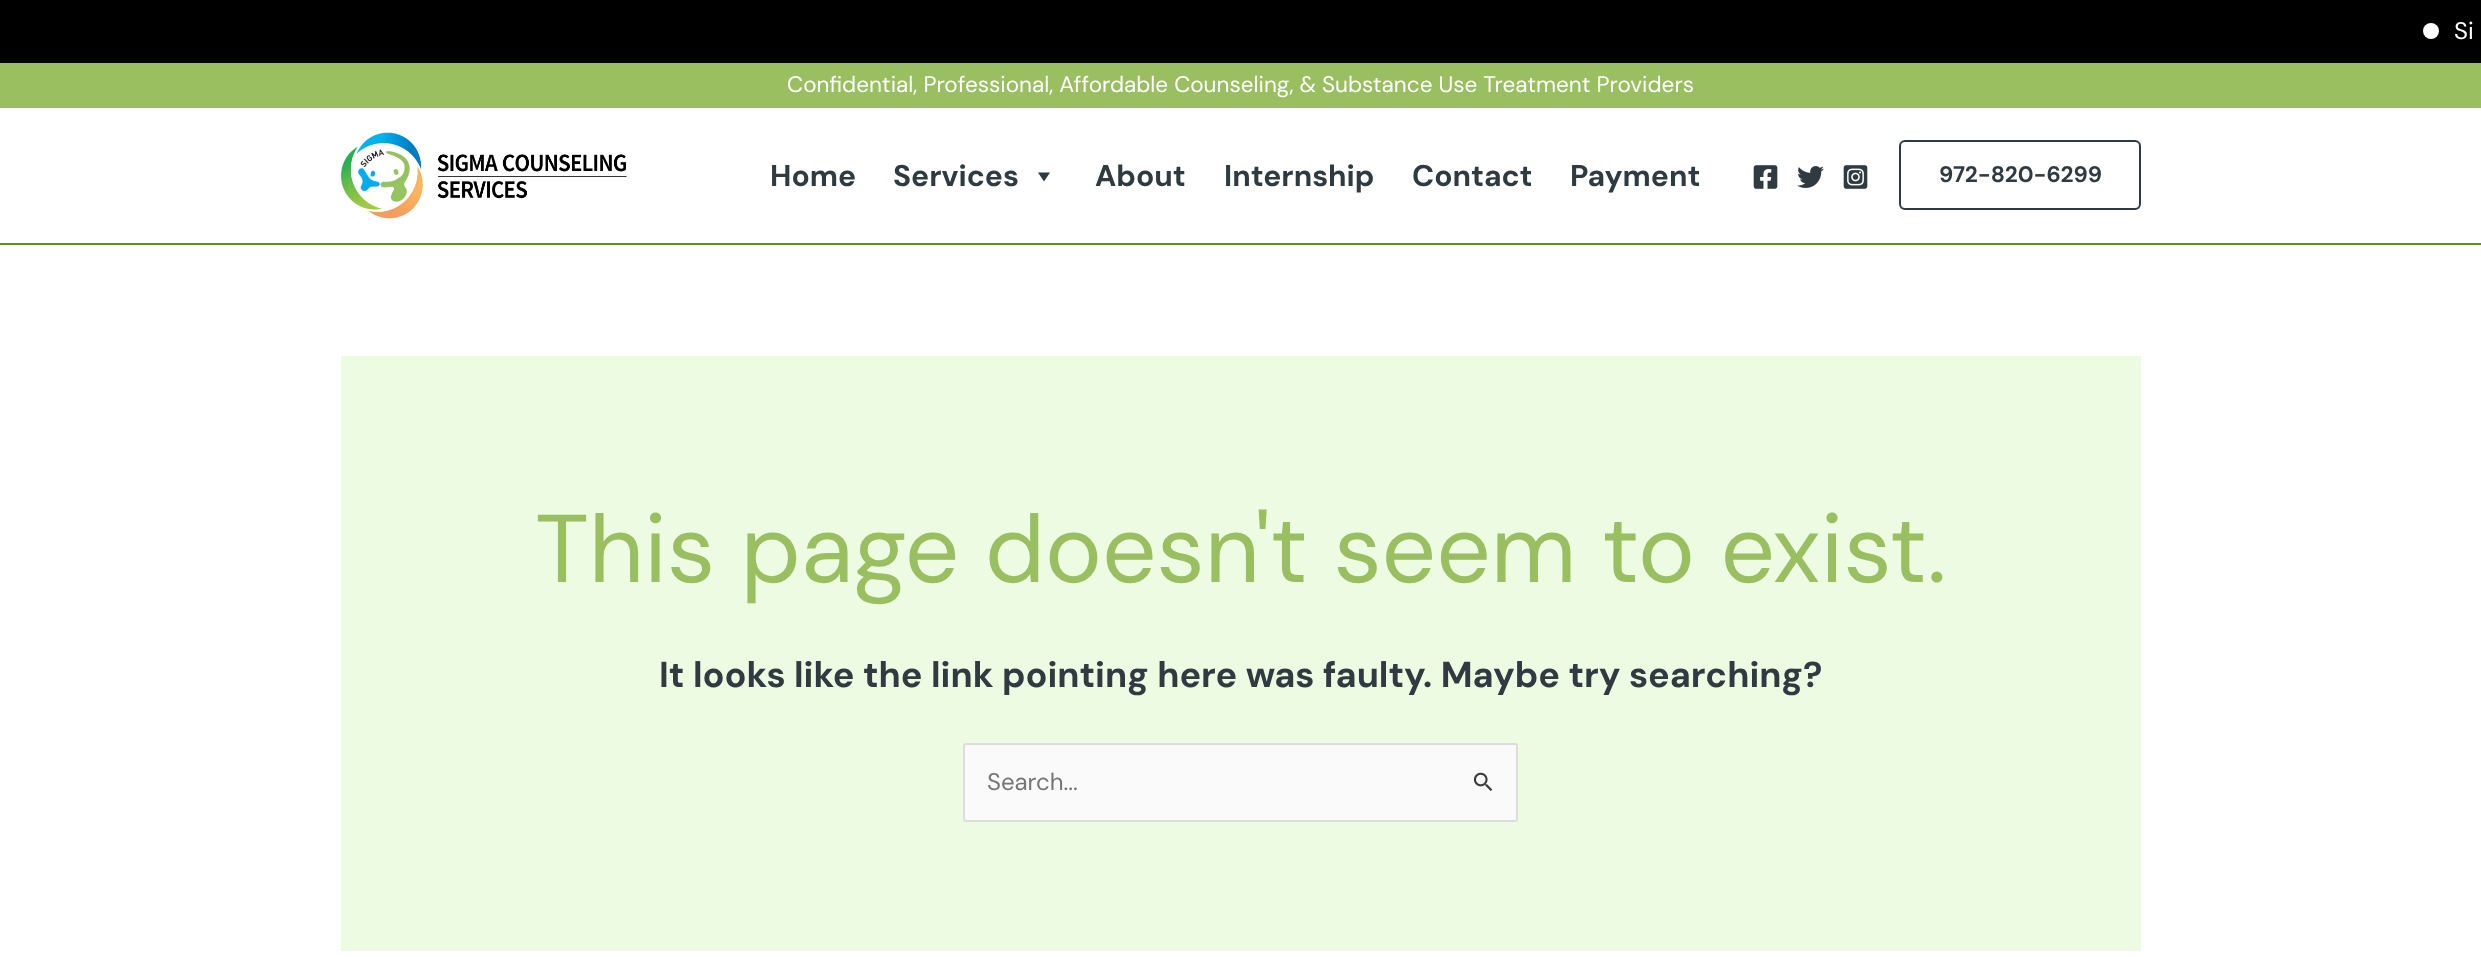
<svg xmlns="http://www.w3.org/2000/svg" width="2481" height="957">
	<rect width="100%" height="100%" fill="#FFFFFF" />
	<rect x="0" y="0" width="2481" height="63" fill="#000000" />
	<circle cx="2431" cy="31" r="8" fill="#FFFFFF" />
	<text x="2454" y="39" font-family="DM Sans" font-size="24" fill="#FFFFFF">Si</text>
	<rect x="0" y="63" width="2481" height="45" fill="#99BF60" />
	<text x="787" y="92" font-family="DM Sans" font-size="22.5" fill="#FFFFFF">Confidential, Professional, Affordable Counseling, &amp; Substance Use Treatment Providers</text>
	<rect x="0" y="243" width="2481" height="2" fill="#618F1D" />
	<image x="340" y="132" width="287" height="87" href="assets/img1.png" />
	<g font-family="DM Sans" font-size="30" font-weight="700" fill="#2F3B40">
		<text x="770" y="186">Home</text>
		<text x="893" y="186">Services</text>
	</g>
	<path d="M1050 172.5L1044 181.5L1038 172.5Z" fill="#2F3B40" />
	<g font-family="DM Sans" font-size="30" font-weight="700" fill="#2F3B40">
		<text x="1095" y="186">About</text>
		<text x="1224" y="186">Internship</text>
		<text x="1412" y="186">Contact</text>
		<text x="1570" y="186">Payment</text>
	</g>
	<image x="1753" y="165" width="25" height="24" href="assets/img2.png" />
	<image x="1797" y="166" width="27" height="22" href="assets/img3.png" />
	<image x="1843" y="165" width="25" height="24" href="assets/img4.png" />
	<rect x="1900" y="141" width="240" height="68" rx="5" fill="none" stroke="#2F3B40" stroke-width="2" />
	<text x="1939" y="182" font-family="DM Sans" font-size="22.5" font-weight="700" fill="#2F3B40">972-820-6299</text>
	<rect x="341" y="356" width="1800" height="595" fill="#EDFBE2" />
	<text x="535" y="582" font-family="DM Sans" font-size="96" fill="#99BF60">This page doesn't seem to exist.</text>
	<text x="659" y="687" font-family="DM Sans" font-size="36" font-weight="700" fill="#2F3B40">It looks like the link pointing here was faulty. Maybe try searching?</text>
	<rect x="964" y="744" width="553" height="77" rx="2" fill="#FAFAFA" stroke="#DDDDDD" stroke-width="2" />
	<text x="987" y="790" font-family="DM Sans" font-size="24" fill="#757575">Search...</text>
	<image x="1473" y="772" width="20" height="19" href="assets/img5.png" />
</svg>
